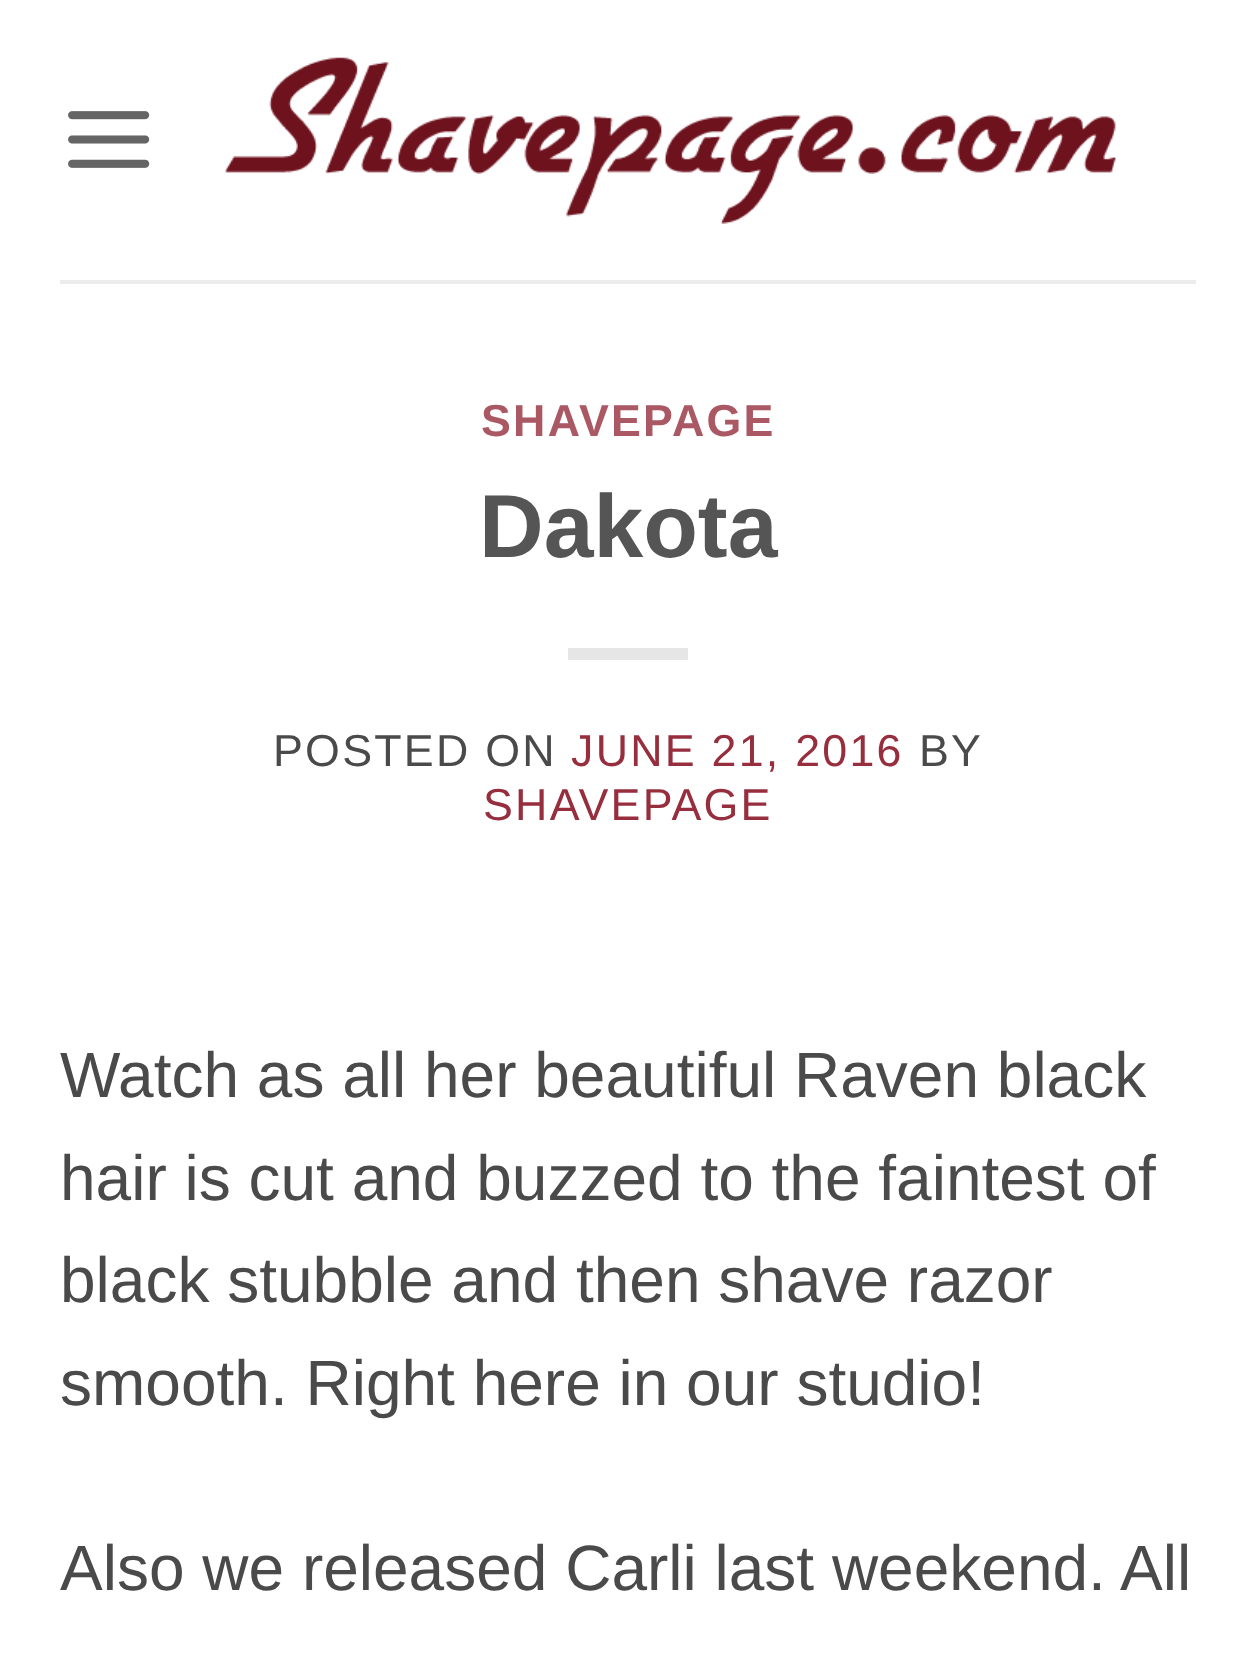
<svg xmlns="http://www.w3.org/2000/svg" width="1256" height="1655">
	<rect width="100%" height="100%" fill="#FFFFFF" />
	<image x="68" y="111" width="82" height="57" href="assets/img1.png" />
	<image x="224" y="57" width="892" height="167" href="assets/img2.png" />
	<rect x="60" y="280" width="1136" height="4" fill="#EDEDED" />
	<text x="481" y="436" font-family="Liberation Sans" font-size="44.75" font-weight="700" letter-spacing="2.25" fill="#AB5865">SHAVEPAGE</text>
	<text x="479" y="557" font-family="Liberation Sans" font-size="89.5" font-weight="700" fill="#555555">Dakota</text>
	<rect x="568" y="648" width="120" height="12" fill="#E6E6E6" />
	<text x="273" y="766" font-family="Liberation Sans" font-size="44.75" letter-spacing="2.25" fill="#4A4A4A">POSTED ON</text>
	<text x="571" y="766" font-family="Liberation Sans" font-size="44.75" letter-spacing="2.25" fill="#962E3E">JUNE 21, 2016</text>
	<text x="919" y="766" font-family="Liberation Sans" font-size="44.75" letter-spacing="2.25" fill="#4A4A4A">BY</text>
	<text x="483" y="820" font-family="Liberation Sans" font-size="44.75" letter-spacing="2.25" fill="#962E3E">SHAVEPAGE</text>
	<g font-family="Liberation Sans" font-size="64" fill="#4A4A4A">
		<text x="60" y="1097">Watch as all her beautiful Raven black</text>
		<text x="60" y="1200">hair is cut and buzzed to the faintest of</text>
		<text x="60" y="1302">black stubble and then shave razor</text>
		<text x="60" y="1405">smooth. Right here in our studio!</text>
		<text x="60" y="1590">Also we released Carli last weekend. All</text>
	</g>
</svg>
